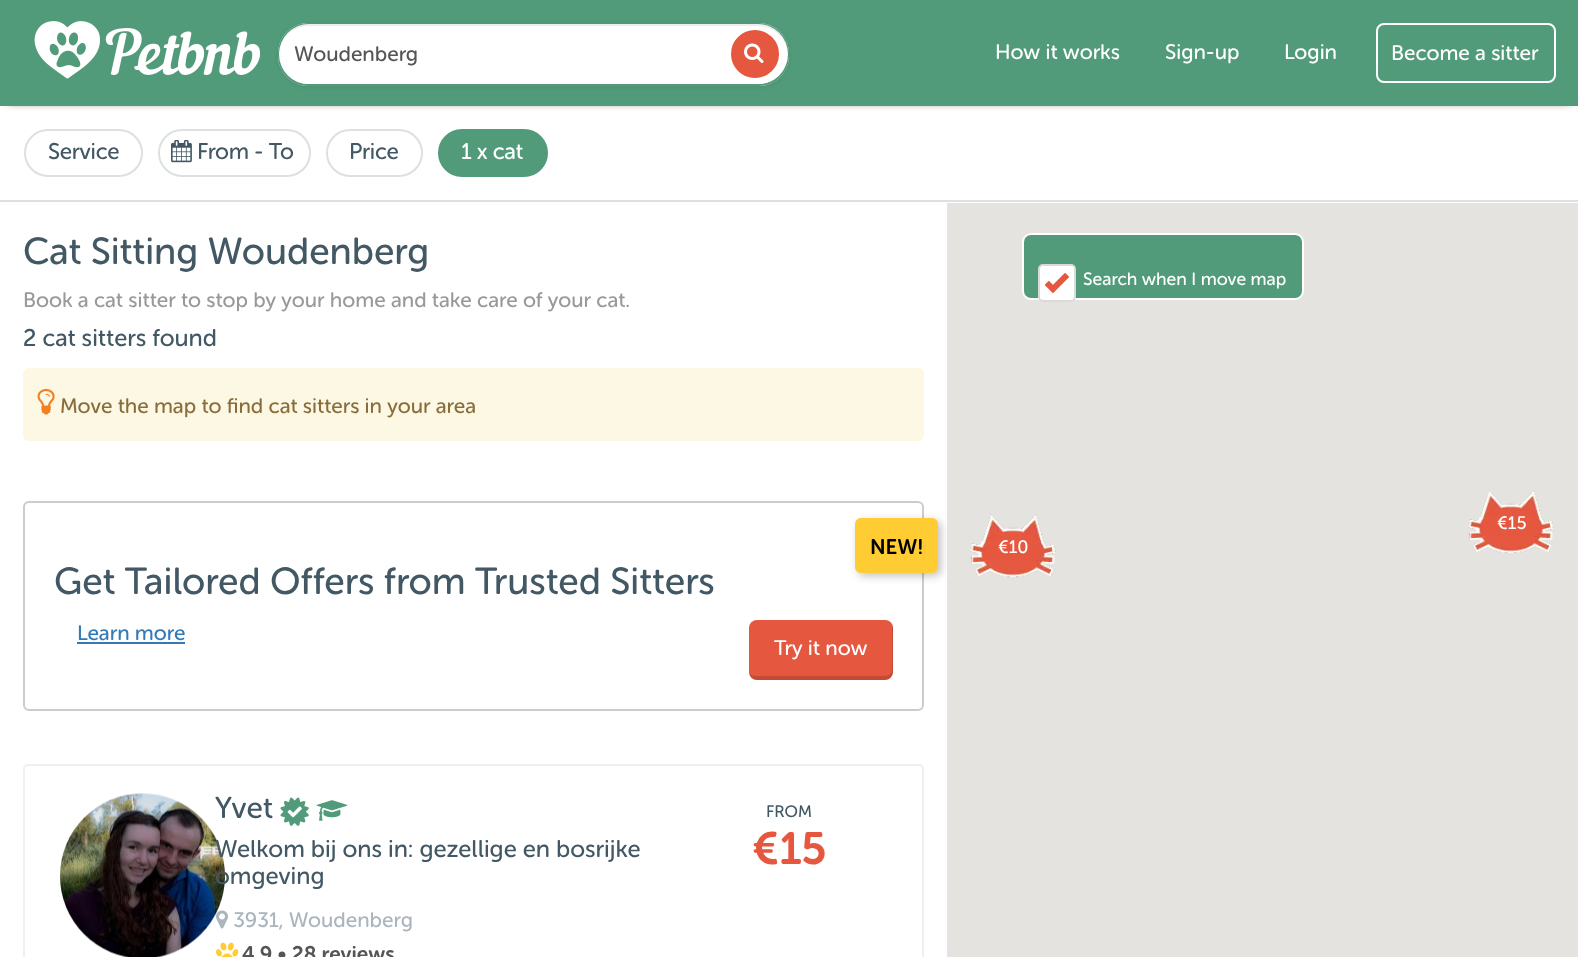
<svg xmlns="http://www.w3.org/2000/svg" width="1578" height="957">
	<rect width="100%" height="100%" fill="#FFFFFF" />
	<rect x="8" y="12" width="1563" height="90" fill="#000000" fill-opacity="0.75" filter="blur(4px)" />
	<rect x="0" y="0" width="1578" height="106" fill="#519B7A" />
	<image x="34" y="21" width="227" height="58" href="assets/img1.png" />
	<rect x="278" y="23" width="511" height="63" rx="30" fill="#FFFFFF" />
	<rect x="278" y="24" width="511" height="63" rx="30" fill="#000000" fill-opacity="0.08" filter="blur(2px)" />
	<rect x="279" y="24" width="509" height="61" rx="29" fill="none" stroke="#519B7A" stroke-width="2" />
	<rect x="279" y="24" width="509" height="60" rx="30" fill="#FFFFFF" />
	<path d="M309 26H758C774 26 787 38 788 55C789 38 775 24 758 24H309C292 24 278 38 279 55C280 38 292 26 309 26Z" fill="#000000" fill-opacity="0.07" />
	<text x="294" y="61" font-family="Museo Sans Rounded" font-size="21" fill="#555555">Woudenberg</text>
	<circle cx="755" cy="54" r="23" fill="#E5573F" stroke="#E5573F" stroke-width="2" />
	<image x="744" y="43" width="20" height="20" href="assets/img2.png" />
	<g font-family="Museo Sans Rounded" font-size="21" fill="#FFFFFF">
		<text x="995" y="59">How it works</text>
		<text x="1165" y="59">Sign-up</text>
		<text x="1284" y="59">Login</text>
	</g>
	<rect x="1377" y="24" width="178" height="58" rx="7" fill="none" stroke="#FFFFFF" stroke-width="2" />
	<text x="1391" y="60" font-family="Museo Sans Rounded" font-size="21" fill="#FFFFFF">Become a sitter</text>
	<rect x="0" y="200" width="1578" height="2" fill="#DCE0E0" />
	<rect x="25" y="130" width="117" height="46" rx="23" fill="none" stroke="#DCE0E0" stroke-width="2" />
	<text x="48" y="159" font-family="Museo Sans Rounded" font-size="22.5" letter-spacing="-0.25" fill="#425864">Service</text>
	<rect x="159" y="130" width="151" height="46" rx="23" fill="none" stroke="#DCE0E0" stroke-width="2" />
	<image x="171" y="140" width="21" height="23" href="assets/img3.png" />
	<text x="197" y="159" font-family="Museo Sans Rounded" font-size="22.5" letter-spacing="-0.25" fill="#425864">From - To</text>
	<rect x="327" y="130" width="95" height="46" rx="23" fill="none" stroke="#DCE0E0" stroke-width="2" />
	<text x="349" y="159" font-family="Museo Sans Rounded" font-size="22.5" letter-spacing="-0.25" fill="#425864">Price</text>
	<rect x="439" y="130" width="108" height="46" rx="23" fill="#519B7A" stroke="#519B7A" stroke-width="2" />
	<text x="461" y="159" font-family="Museo Sans Rounded" font-size="22.5" letter-spacing="-0.25" fill="#FFFFFF">1 x cat</text>
	<text x="23" y="264" font-family="Museo Sans Rounded" font-size="37.5" fill="#425864">Cat Sitting Woudenberg</text>
	<text x="23" y="307" font-family="Museo Sans Rounded" font-size="21" fill="#999999">Book a cat sitter to stop by your home and take care of your cat.</text>
	<text x="23" y="346" font-family="Museo Sans Rounded" font-size="24" fill="#425864">2 cat sitters found</text>
	<rect x="23" y="368" width="901" height="73" rx="6" fill="#FCF8E3" />
	<image x="37" y="388" width="18" height="27" href="assets/img4.png" />
	<text x="60" y="413" font-family="Museo Sans Rounded" font-size="21" fill="#8A6D3B">Move the map to find cat sitters in your area</text>
	<rect x="24" y="502" width="899" height="208" rx="5" fill="none" stroke="#CCCCCC" stroke-width="2" />
	<rect x="858" y="521" width="83" height="55" rx="6" fill="#000000" fill-opacity="0.24" filter="blur(4px)" />
	<rect x="855" y="518" width="83" height="55" rx="6" fill="#FFCC33" />
	<text x="870" y="554" font-family="Museo Sans Rounded" font-size="21" font-weight="600" fill="#000000">NEW!</text>
	<text x="54" y="594" font-family="Museo Sans Rounded" font-size="37.5" fill="#425864">Get Tailored Offers from Trusted Sitters</text>
	<text x="77" y="640" font-family="Museo Sans Rounded" font-size="21" fill="#337AB7">Learn more</text>
	<rect x="77" y="642" width="108" height="2" fill="#337AB7" />
	<rect x="749" y="620" width="144" height="60" rx="8" fill="#E5573F" />
	<path d="M749 672C749 677 753 680 757 680H885C889 680 893 676 893 672V628C893 627 893 625 892 624V669C892 673 889 676 885 676H756C753 676 750 675 749 672Z" fill="#000000" fill-opacity="0.15" />
	<text x="774" y="655" font-family="Museo Sans Rounded" font-size="21" fill="#FFFFFF">Try it now</text>
	<rect x="24" y="765" width="899" height="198" rx="4" fill="none" stroke="#EFEFEF" stroke-width="2" />
	<image x="60" y="793" width="165" height="164" href="assets/img5.png" />
	<text x="215" y="818" font-family="Museo Sans Rounded" font-size="30" fill="#425864">Yvet</text>
	<image x="280" y="797" width="29" height="29" href="assets/img6.png" />
	<image x="287" y="806" width="15" height="12" href="assets/img7.png" />
	<image x="316" y="800" width="32" height="21" href="assets/img8.png" />
	<g font-family="Museo Sans Rounded" font-size="24" fill="#425864">
		<text x="215" y="857">Welkom bij ons in: gezellige en bosrijke</text>
		<text x="215" y="884">omgeving</text>
	</g>
	<image x="216" y="910" width="12" height="19" href="assets/img9.png" />
	<text x="233" y="927" font-family="Museo Sans Rounded" font-size="21" fill="#ABB5BE">3931, Woudenberg</text>
	<image x="216" y="942" width="23" height="15" href="assets/img10.png" />
	<text x="242" y="961" font-family="Museo Sans Rounded" font-size="21" font-weight="600" fill="#555555">4.9 • 28 reviews</text>
	<text x="766" y="817" font-family="Museo Sans Rounded" font-size="16.5" fill="#425864">FROM</text>
	<text x="752" y="864" font-family="Museo Sans Rounded" font-size="45" font-weight="600" fill="#E5573F">€15</text>
	<rect x="947" y="203" width="631" height="754" fill="#E5E3DF" />
	<rect x="1023" y="234" width="280" height="65" rx="8" fill="#519B7A" stroke="#FFFFFF" stroke-width="2" />
	<rect x="1039" y="265" width="36" height="36" rx="4" fill="#FFFFFF" stroke="#DADADA" stroke-width="2" />
	<image x="1044" y="272" width="26" height="22" href="assets/img11.png" />
	<text x="1083" y="285" font-family="Museo Sans Rounded" font-size="17.8" fill="#FFFFFF">Search when I move map</text>
	<image x="970" y="514" width="86" height="64" href="assets/img12.png" />
	<image x="1468" y="490" width="86" height="64" href="assets/img12.png" />
	<g font-family="Museo Sans Rounded" font-size="18" fill="#FFFFFF">
		<text x="1497" y="529">€15</text>
		<text x="998" y="553">€10</text>
	</g>
</svg>
